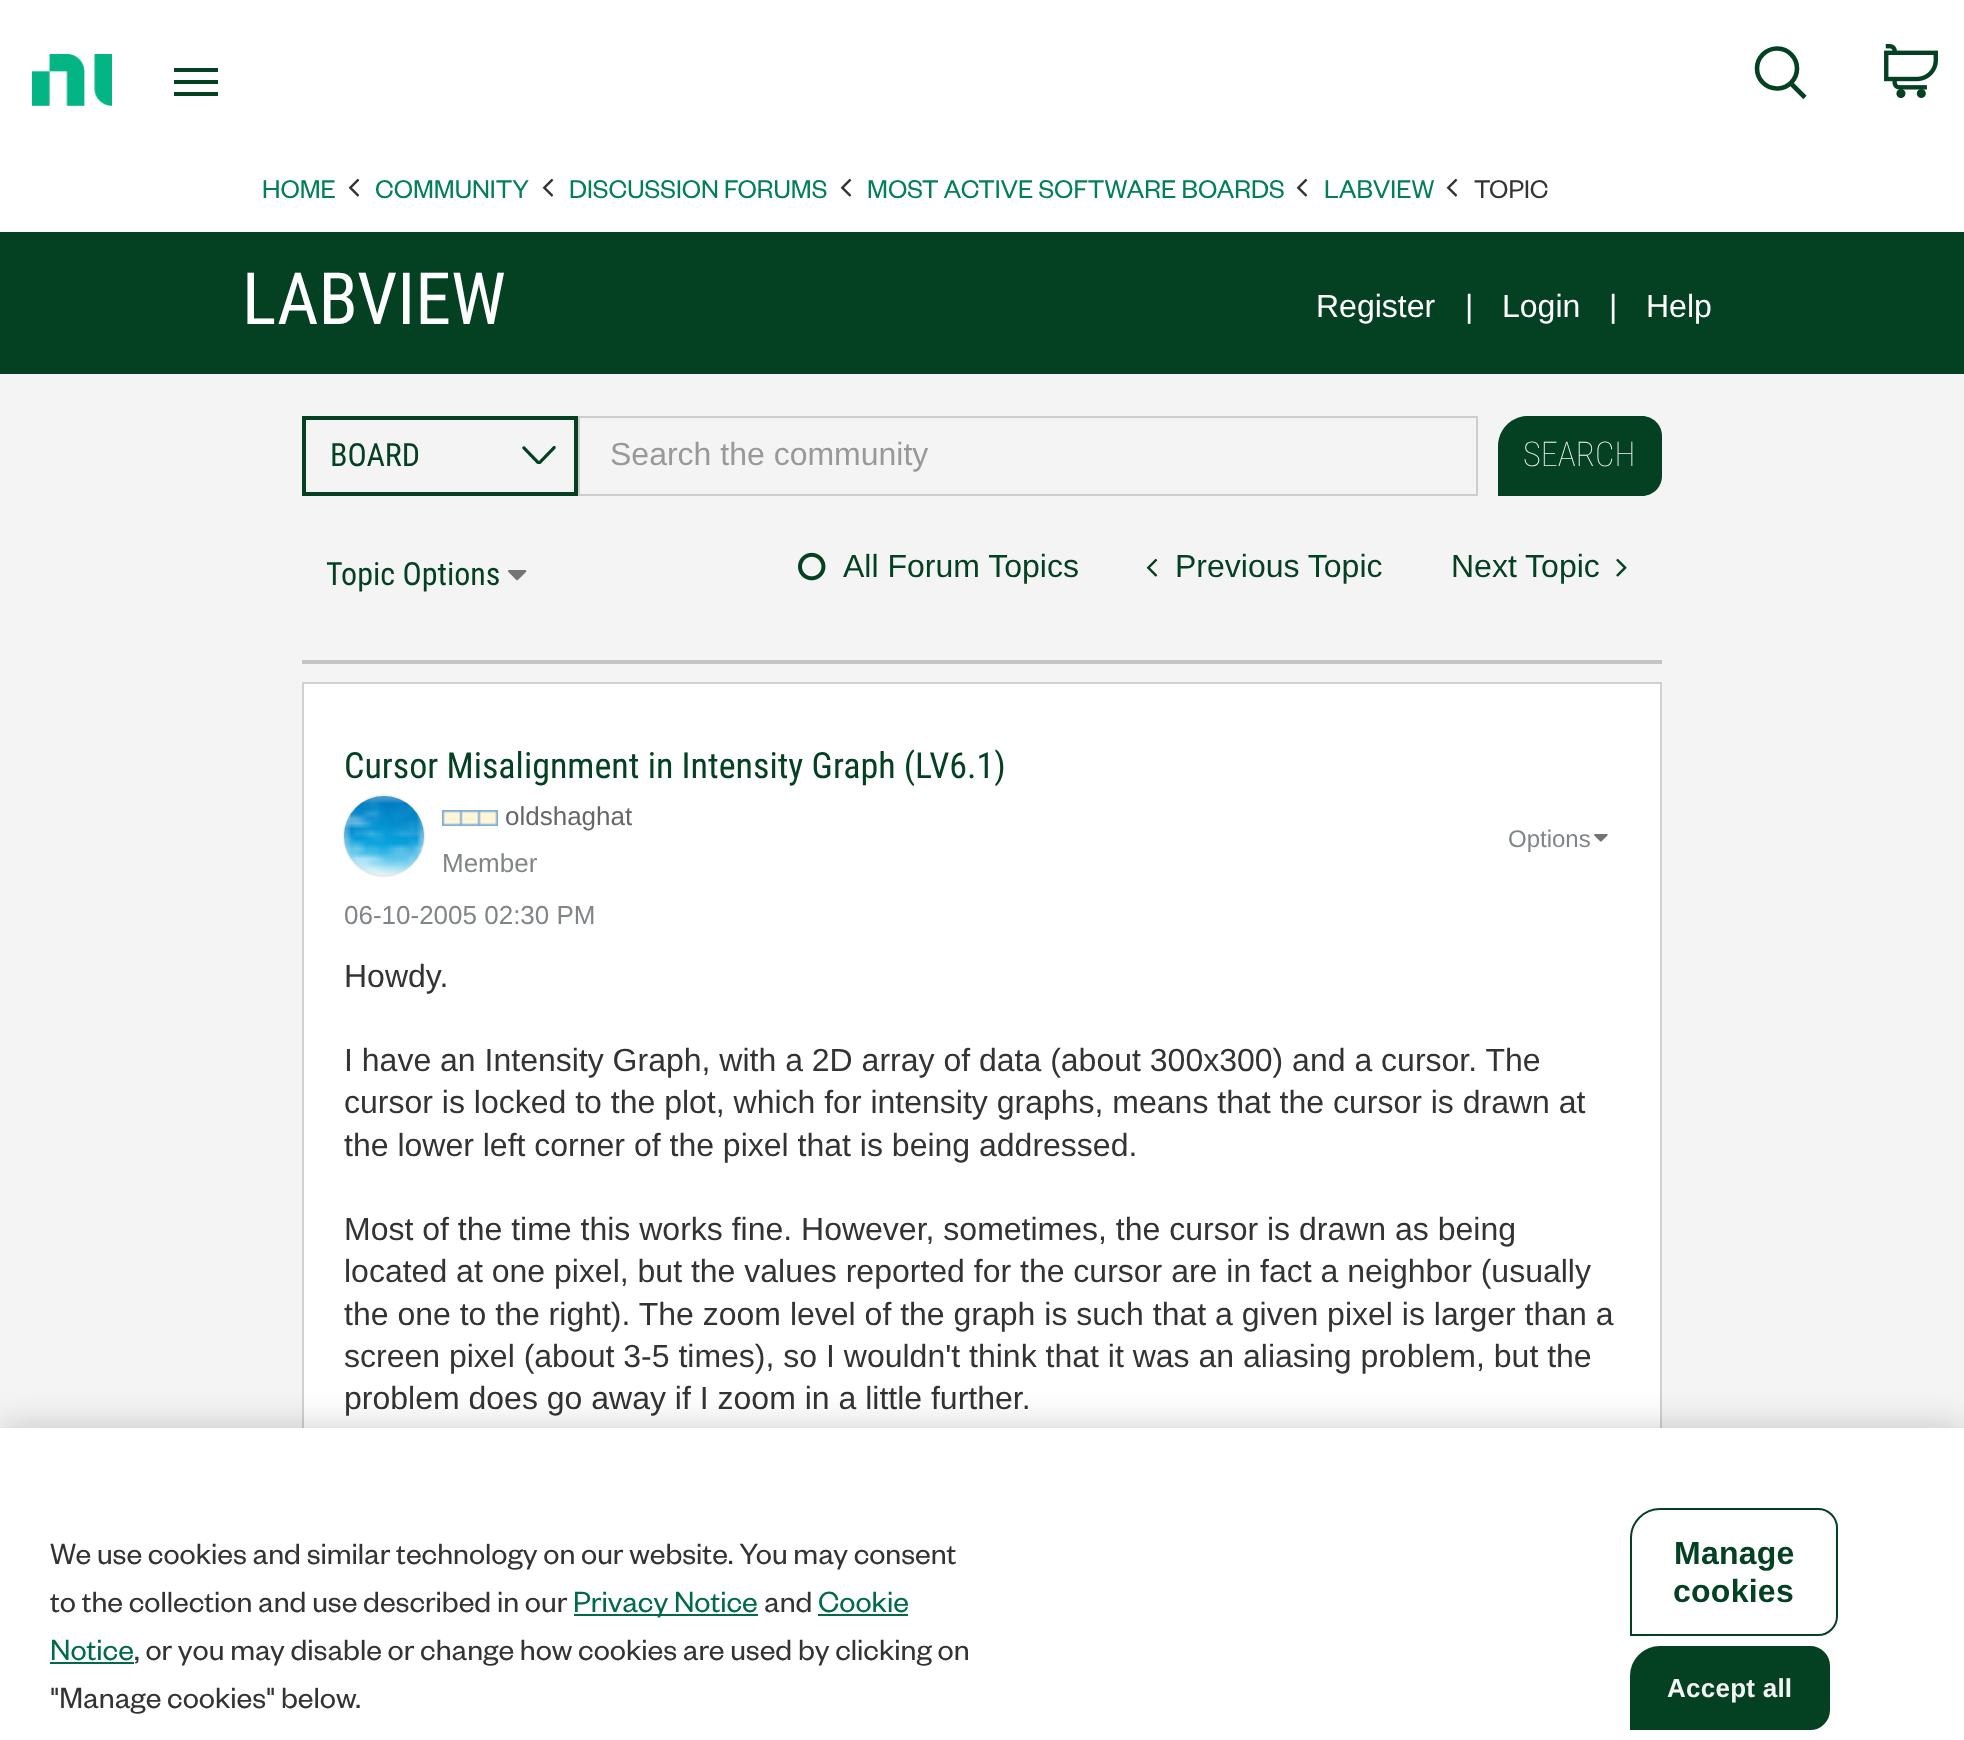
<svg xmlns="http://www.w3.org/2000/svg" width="1964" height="1740">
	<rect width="100%" height="100%" fill="#F4F4F4" />
	<rect x="0" y="0" width="1964" height="232" fill="#FFFFFF" />
	<image x="32" y="54" width="80" height="52" href="assets/img1.png" />
	<rect x="174" y="68" width="44" height="4" fill="#044123" />
	<rect x="174" y="80" width="44" height="4" fill="#044123" />
	<rect x="174" y="92" width="44" height="4" fill="#044123" />
	<circle cx="1777" cy="68.5" r="20" fill="none" stroke="#044123" stroke-width="4.6" />
	<path d="M1791 83.5L1805 97.5" fill="none" stroke="#044123" stroke-width="4.6" />
	<image x="1884" y="44" width="54" height="54" href="assets/img2.png" />
	<text x="262" y="198" font-family="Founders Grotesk" font-size="28" fill="#008053">HOME</text>
	<image x="348" y="178" width="12" height="19" href="assets/img3.png" />
	<text x="375" y="198" font-family="Founders Grotesk" font-size="28" fill="#008053">COMMUNITY</text>
	<image x="542" y="178" width="12" height="19" href="assets/img3.png" />
	<text x="569" y="198" font-family="Founders Grotesk" font-size="28" fill="#008053">DISCUSSION FORUMS</text>
	<image x="840" y="178" width="12" height="19" href="assets/img3.png" />
	<text x="867" y="198" font-family="Founders Grotesk" font-size="28" fill="#008053">MOST ACTIVE SOFTWARE BOARDS</text>
	<image x="1296" y="178" width="12" height="19" href="assets/img3.png" />
	<text x="1324" y="198" font-family="Founders Grotesk" font-size="28" fill="#008053">LABVIEW</text>
	<image x="1446" y="178" width="12" height="19" href="assets/img3.png" />
	<text x="1474" y="198" font-family="Founders Grotesk" font-size="28" fill="#333333">TOPIC</text>
	<rect x="0" y="232" width="1964" height="142" fill="#044123" />
	<text x="242" y="324" font-family="Roboto Condensed" font-size="72" fill="#FFFFFF">LABVIEW</text>
	<g font-family="Liberation Sans" font-size="32" fill="#FFFFFF">
		<text x="1316" y="317">Register</text>
		<text x="1465" y="317">|</text>
		<text x="1502" y="317">Login</text>
		<text x="1609" y="317">|</text>
		<text x="1646" y="317">Help</text>
	</g>
	<image x="522" y="446" width="34" height="18" href="assets/img4.png" />
	<rect x="302" y="416" width="278" height="4" fill="#044123" />
	<rect x="574" y="416" width="4" height="80" fill="#044123" />
	<rect x="302" y="492" width="278" height="4" fill="#044123" />
	<rect x="302" y="416" width="4" height="80" fill="#044123" />
	<text x="330" y="466" font-family="Roboto Condensed" font-size="32" fill="#044123">BOARD</text>
	<rect x="579" y="417" width="898" height="78" fill="none" stroke="#CDCDCD" stroke-width="2" />
	<text x="610" y="465" font-family="Liberation Sans" font-size="32" fill="#999999">Search the community</text>
	<path d="M1528 416H1642C1653 416 1662 425 1662 436V476C1662 487 1653 496 1642 496H1498V446C1498 429.5 1511.5 416 1528 416Z" fill="#044123" />
	<text x="1523" y="466" font-family="Roboto Condensed" font-size="34" font-weight="100" fill="#F4F4F4">SEARCH</text>
	<text x="326" y="585" font-family="Roboto Condensed" font-size="32" fill="#044123">Topic Options</text>
	<image x="508" y="570" width="19" height="11" href="assets/img5.png" />
	<image x="798" y="552" width="28" height="29" href="assets/img6.png" />
	<text x="843" y="577" font-family="Liberation Sans" font-size="32" fill="#044123">All Forum Topics</text>
	<image x="1146" y="558" width="12" height="19" href="assets/img7.png" />
	<g font-family="Liberation Sans" font-size="32" fill="#044123">
		<text x="1175" y="577">Previous Topic</text>
		<text x="1451" y="577">Next Topic</text>
	</g>
	<image x="1616" y="558" width="11" height="19" href="assets/img8.png" />
	<rect x="302" y="660" width="1360" height="4" fill="#C4C4C4" />
	<rect x="304" y="684" width="1356" height="744" fill="#FFFFFF" />
	<rect x="303" y="683" width="1358" height="1044" fill="none" stroke="#D1D1D1" stroke-width="2" />
	<text x="344" y="778" font-family="Roboto Condensed" font-size="36" fill="#044123">Cursor Misalignment in Intensity Graph (LV6.1)</text>
	<rect x="344" y="796" width="80" height="80" rx="40" fill="#C4C4C4" filter="blur(1px)" />
	<image x="344" y="796" width="80" height="80" href="assets/img9.png" />
	<image x="442" y="810" width="56" height="16" href="assets/img10.png" />
	<text x="505" y="825" font-family="Liberation Sans" font-size="26" fill="#666666">oldshaghat</text>
	<text x="442" y="872" font-family="Liberation Sans" font-size="26" fill="#808587">Member</text>
	<text x="1508" y="847" font-family="Liberation Sans" font-size="24" fill="#808587">Options</text>
	<image x="1594" y="834" width="14" height="8" href="assets/img11.png" />
	<text x="344" y="924" font-family="Liberation Sans" font-size="26" fill="#808587">06-10-2005 02:30 PM</text>
	<g font-family="Liberation Sans" font-size="32" fill="#333333">
		<text x="344" y="987">Howdy.</text>
		<text x="344" y="1071">I have an Intensity Graph, with a 2D array of data (about 300x300) and a cursor. The</text>
		<text x="344" y="1113">cursor is locked to the plot, which for intensity graphs, means that the cursor is drawn at</text>
		<text x="344" y="1156">the lower left corner of the pixel that is being addressed.</text>
		<text x="344" y="1240">Most of the time this works fine. However, sometimes, the cursor is drawn as being</text>
		<text x="344" y="1282">located at one pixel, but the values reported for the cursor are in fact a neighbor (usually</text>
		<text x="344" y="1325">the one to the right). The zoom level of the graph is such that a given pixel is larger than a</text>
		<text x="344" y="1367">screen pixel (about 3-5 times), so I wouldn't think that it was an aliasing problem, but the</text>
		<text x="344" y="1409">problem does go away if I zoom in a little further.</text>
	</g>
	<rect x="0" y="1428" width="1964" height="312" fill="#000000" fill-opacity="0.2" filter="blur(18px)" />
	<rect x="0" y="1428" width="1964" height="312" fill="#FFFFFF" />
	<g font-family="Founders Grotesk" font-size="32" fill="#333333">
		<text x="50" y="1564">We use cookies and similar technology on our website. You may consent</text>
		<text x="50" y="1612">to the collection and use described in our</text>
	</g>
	<rect x="574" y="1614" width="184" height="2" fill="#006B46" />
	<text x="573" y="1612" font-family="Founders Grotesk" font-size="32" fill="#006B46">Privacy Notice</text>
	<text x="764" y="1612" font-family="Founders Grotesk" font-size="32" fill="#333333">and</text>
	<text x="818" y="1612" font-family="Founders Grotesk" font-size="32" fill="#006B46">Cookie</text>
	<rect x="818" y="1614" width="90" height="2" fill="#006B46" />
	<text x="50" y="1660" font-family="Founders Grotesk" font-size="32" fill="#006B46">Notice</text>
	<rect x="50" y="1662" width="84" height="2" fill="#006B46" />
	<g font-family="Founders Grotesk" font-size="32" fill="#333333">
		<text x="134" y="1660">, or you may disable or change how cookies are used by clicking on</text>
		<text x="50" y="1708">"Manage cookies" below.</text>
	</g>
	<path d="M1660 1509H1818C1828.5 1509 1837 1517.5 1837 1528V1616C1837 1626.5 1828.5 1635 1818 1635H1631V1538C1631 1522 1644 1509 1660 1509Z" fill="none" stroke="#044123" stroke-width="2" />
	<g font-family="Liberation Sans" font-size="32" font-weight="700" letter-spacing="0.25" fill="#044123">
		<text x="1674" y="1564">Manage</text>
		<text x="1673" y="1602">cookies</text>
	</g>
	<path d="M1660 1647H1810C1820.5 1647 1829 1655.5 1829 1666V1710C1829 1720.5 1820.5 1729 1810 1729H1631V1676C1631 1660 1644 1647 1660 1647Z" fill="#044123" stroke="#044123" stroke-width="2" />
	<text x="1667" y="1697" font-family="Liberation Sans" font-size="26" font-weight="700" letter-spacing="0.25" fill="#F4F4F4">Accept all</text>
</svg>
